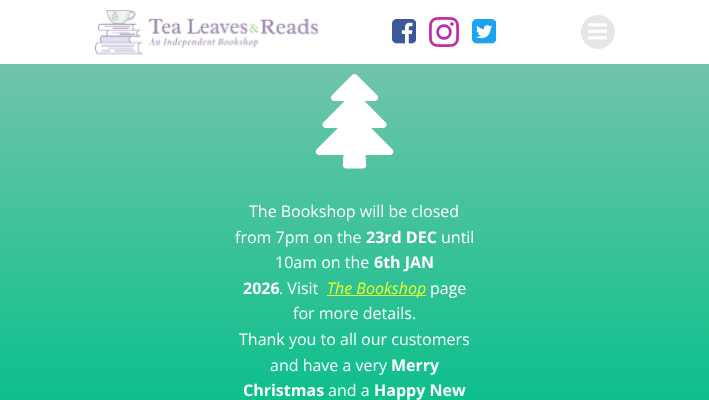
<svg xmlns="http://www.w3.org/2000/svg" width="709" height="400">
	<defs>
		<linearGradient id="g1" gradientUnits="userSpaceOnUse" x1="355" y1="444" x2="355" y2="64"><stop offset="0" stop-color="#00BF87" /><stop offset="1" stop-color="#70C4AC" /></linearGradient>
	</defs>
	<rect width="100%" height="100%" fill="#FFFFFF" />
	<image x="95" y="10" width="223" height="45" href="assets/img1.png" />
	<image x="392" y="19" width="24" height="25" href="assets/img2.png" />
	<image x="429" y="17" width="30" height="30" href="assets/img3.png" />
	<image x="472" y="19" width="24" height="25" href="assets/img4.png" />
	<circle cx="598" cy="32" r="17" fill="#E6E6E6" />
	<image x="588" y="23" width="19" height="17" href="assets/img5.png" />
	<rect x="0" y="64" width="709" height="336" fill="url(#g1)" />
	<image x="315" y="74" width="79" height="95" href="assets/img6.png" />
	<g font-family="Open Sans" font-size="16" fill="#FFFFFF">
		<text x="249" y="217">The Bookshop will be closed</text>
		<text x="235" y="243">from 7pm on the</text>
	</g>
	<text x="366" y="243" font-family="Open Sans" font-size="16" font-weight="700" fill="#FFFFFF">23rd DEC</text>
	<g font-family="Open Sans" font-size="16" fill="#FFFFFF">
		<text x="441" y="243">until</text>
		<text x="275" y="268">10am on the</text>
	</g>
	<g font-family="Open Sans" font-size="16" font-weight="700" fill="#FFFFFF">
		<text x="374" y="268">6th JAN</text>
		<text x="243" y="294">2026</text>
	</g>
	<text x="279" y="294" font-family="Open Sans" font-size="16" fill="#FFFFFF">. Visit</text>
	<rect x="327" y="295" width="99" height="1" fill="#E3FF2D" />
	<text x="327" y="294" font-family="Open Sans" font-size="16" font-style="italic" fill="#E3FF2D">The Bookshop</text>
	<g font-family="Open Sans" font-size="16" fill="#FFFFFF">
		<text x="430" y="294">page</text>
		<text x="293" y="319">for more details.</text>
		<text x="239" y="345">Thank you to all our customers</text>
		<text x="270" y="371">and have a very</text>
	</g>
	<g font-family="Open Sans" font-size="16" font-weight="700" fill="#FFFFFF">
		<text x="391" y="371">Merry</text>
		<text x="243" y="396">Christmas</text>
	</g>
	<text x="328" y="396" font-family="Open Sans" font-size="16" fill="#FFFFFF">and a</text>
	<text x="374" y="396" font-family="Open Sans" font-size="16" font-weight="700" fill="#FFFFFF">Happy New</text>
</svg>
